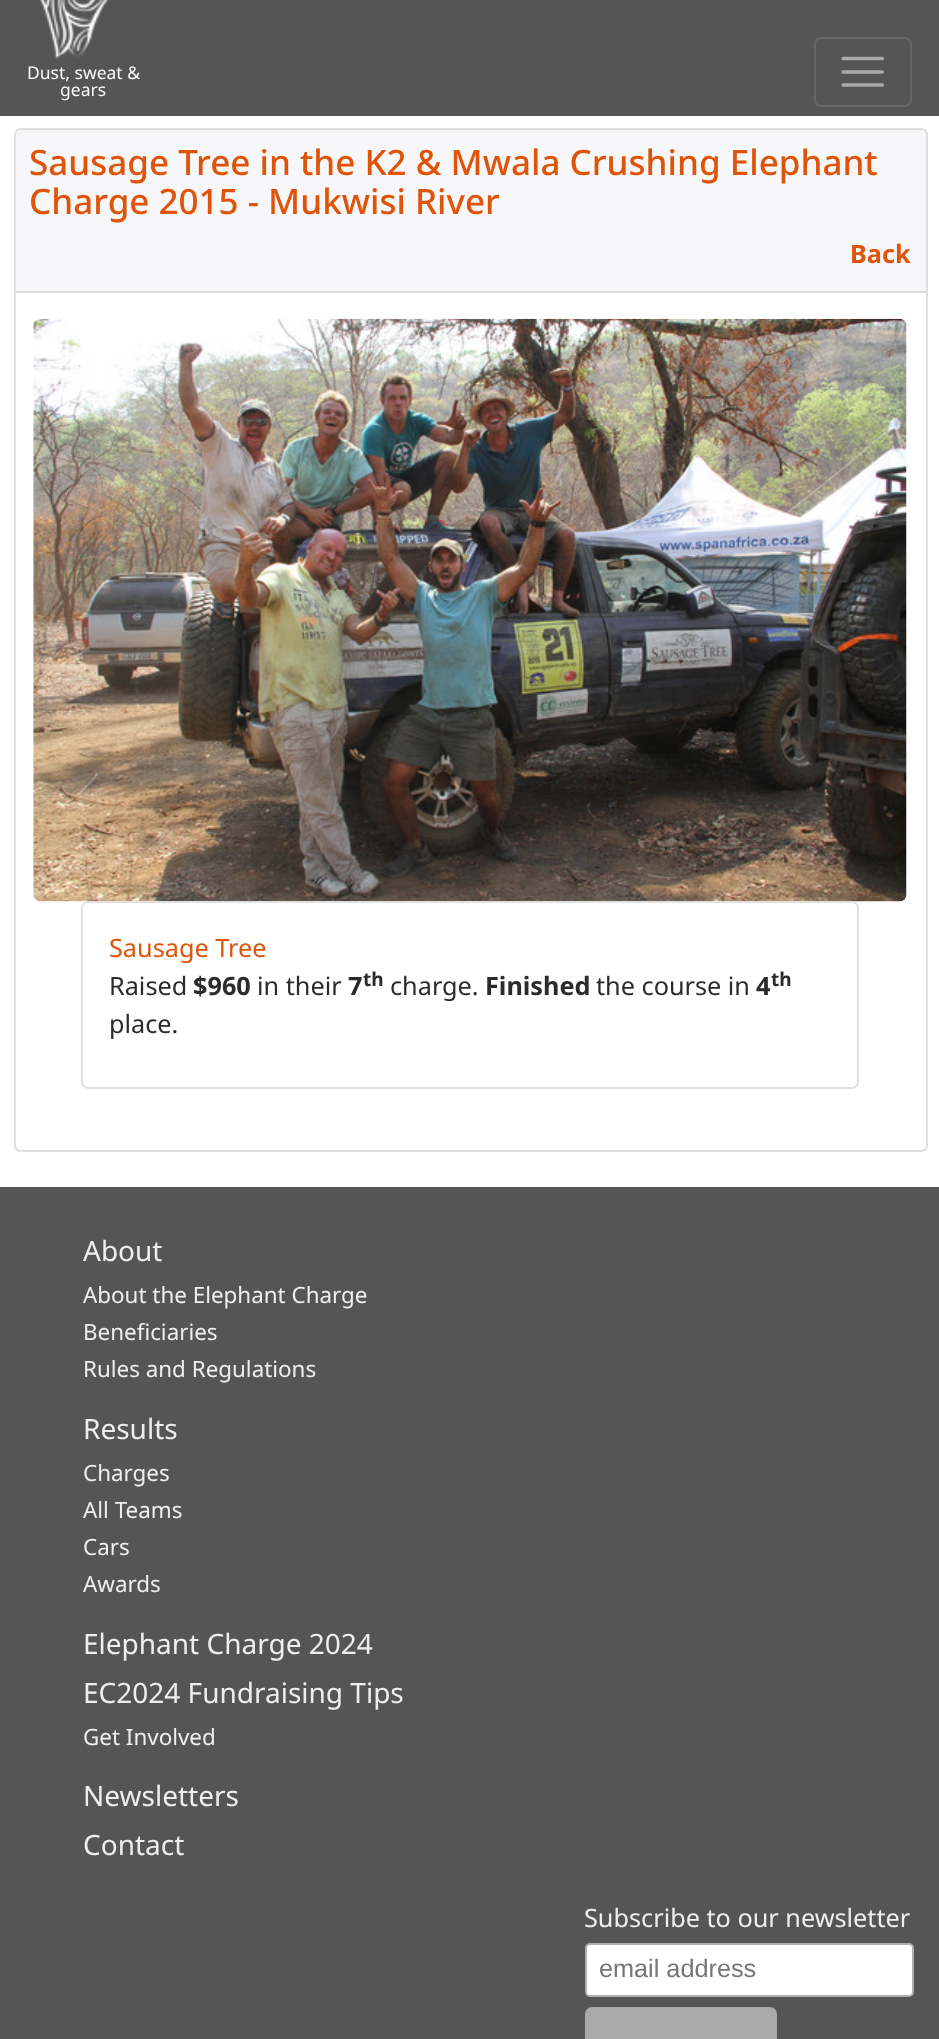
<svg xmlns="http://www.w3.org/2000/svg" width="939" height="2039">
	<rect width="100%" height="100%" fill="#FFFFFF" />
	<rect x="16" y="292" width="910" height="1" fill="#E0E0E0" />
	<rect x="0" y="0" width="939" height="116" fill="#555555" />
	<image x="40" y="0" width="69" height="59" href="assets/img1.png" />
	<g font-family="Noto Sans" font-size="17.5" fill="#FAFAFA">
		<text x="27" y="79">Dust, sweat &amp;</text>
		<text x="60" y="96">gears</text>
	</g>
	<rect x="815" y="38" width="96" height="68" rx="6" fill="none" stroke="#666666" stroke-width="2" />
	<path d="M843 58.5H882.5M843 72H882.5M843 85H882.5" fill="none" stroke="#AAAAAA" stroke-width="3.3" stroke-linecap="round" />
	<rect x="15" y="129" width="912" height="1022" rx="6" fill="none" stroke="#DFDFDF" stroke-width="2" />
	<path d="M21 130H921C924 130 926 132 926 135V292H16V135C16 132 18 130 21 130Z" fill="#F7F7F9" />
	<rect x="16" y="291" width="910" height="1" fill="#D9D9DB" />
	<g font-family="Noto Sans" font-size="35" font-weight="500" fill="#DF5409">
		<text x="29" y="175">Sausage Tree in the K2 &amp; Mwala Crushing Elephant</text>
		<text x="29" y="214">Charge 2015 - Mukwisi River</text>
	</g>
	<text x="850" y="263" font-family="Noto Sans" font-size="25.25" font-weight="700" fill="#DF5409">Back</text>
	<image x="33" y="318" width="874" height="584" href="assets/img2.png" />
	<rect x="81" y="901" width="778" height="188" rx="7" fill="#FFFFFF" />
	<rect x="82" y="902" width="776" height="186" rx="6" fill="none" stroke="#000000" stroke-opacity="0.12" stroke-width="2" />
	<text x="109" y="957" font-family="Noto Sans" font-size="25.25" fill="#DF5409">Sausage Tree</text>
	<text x="109" y="995" font-family="Noto Sans" font-size="25.25" fill="#292B2C">Raised</text>
	<text x="193" y="995" font-family="Noto Sans" font-size="25.25" font-weight="700" fill="#292B2C">$960</text>
	<text x="257" y="995" font-family="Noto Sans" font-size="25.25" fill="#292B2C">in their</text>
	<text x="348" y="995" font-family="Noto Sans" font-size="25.25" font-weight="700" fill="#292B2C">7</text>
	<text x="363" y="986" font-family="Noto Sans" font-size="19" font-weight="700" fill="#292B2C">th</text>
	<text x="390" y="995" font-family="Noto Sans" font-size="25.25" fill="#292B2C">charge.</text>
	<text x="485" y="995" font-family="Noto Sans" font-size="25.25" font-weight="700" fill="#292B2C">Finished</text>
	<text x="596" y="995" font-family="Noto Sans" font-size="25.25" fill="#292B2C">the course in</text>
	<text x="756" y="995" font-family="Noto Sans" font-size="25.25" font-weight="700" fill="#292B2C">4</text>
	<text x="771" y="986" font-family="Noto Sans" font-size="19" font-weight="700" fill="#292B2C">th</text>
	<text x="109" y="1033" font-family="Noto Sans" font-size="25.25" fill="#292B2C">place.</text>
	<rect x="0" y="1187" width="939" height="852" fill="#555555" />
	<text x="83" y="1261" font-family="Noto Sans" font-size="28" fill="#EEEEEE">About</text>
	<g font-family="Noto Sans" font-size="22.4" fill="#EEEEEE">
		<text x="83" y="1303">About the Elephant Charge</text>
		<text x="83" y="1340">Beneficiaries</text>
		<text x="83" y="1377">Rules and Regulations</text>
	</g>
	<text x="83" y="1439" font-family="Noto Sans" font-size="28" fill="#EEEEEE">Results</text>
	<g font-family="Noto Sans" font-size="22.4" fill="#EEEEEE">
		<text x="83" y="1481">Charges</text>
		<text x="83" y="1518">All Teams</text>
		<text x="83" y="1555">Cars</text>
		<text x="83" y="1592">Awards</text>
	</g>
	<g font-family="Noto Sans" font-size="28" fill="#EEEEEE">
		<text x="83" y="1654">Elephant Charge 2024</text>
		<text x="83" y="1703">EC2024 Fundraising Tips</text>
	</g>
	<text x="83" y="1745" font-family="Noto Sans" font-size="22.4" fill="#EEEEEE">Get Involved</text>
	<g font-family="Noto Sans" font-size="28" fill="#EEEEEE">
		<text x="83" y="1806">Newsletters</text>
		<text x="83" y="1855">Contact</text>
	</g>
	<text x="584" y="1927" font-family="Noto Sans" font-size="25.25" fill="#EEEEEE">Subscribe to our newsletter</text>
	<rect x="586" y="1944" width="327" height="52" rx="4" fill="#FFFFFF" stroke="#ABB0B2" stroke-width="2" />
	<text x="599" y="1977" font-family="Liberation Sans" font-size="25.25" fill="#757575">email address</text>
	<rect x="585" y="2007" width="192" height="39" rx="7" fill="#AAAAAA" />
</svg>
